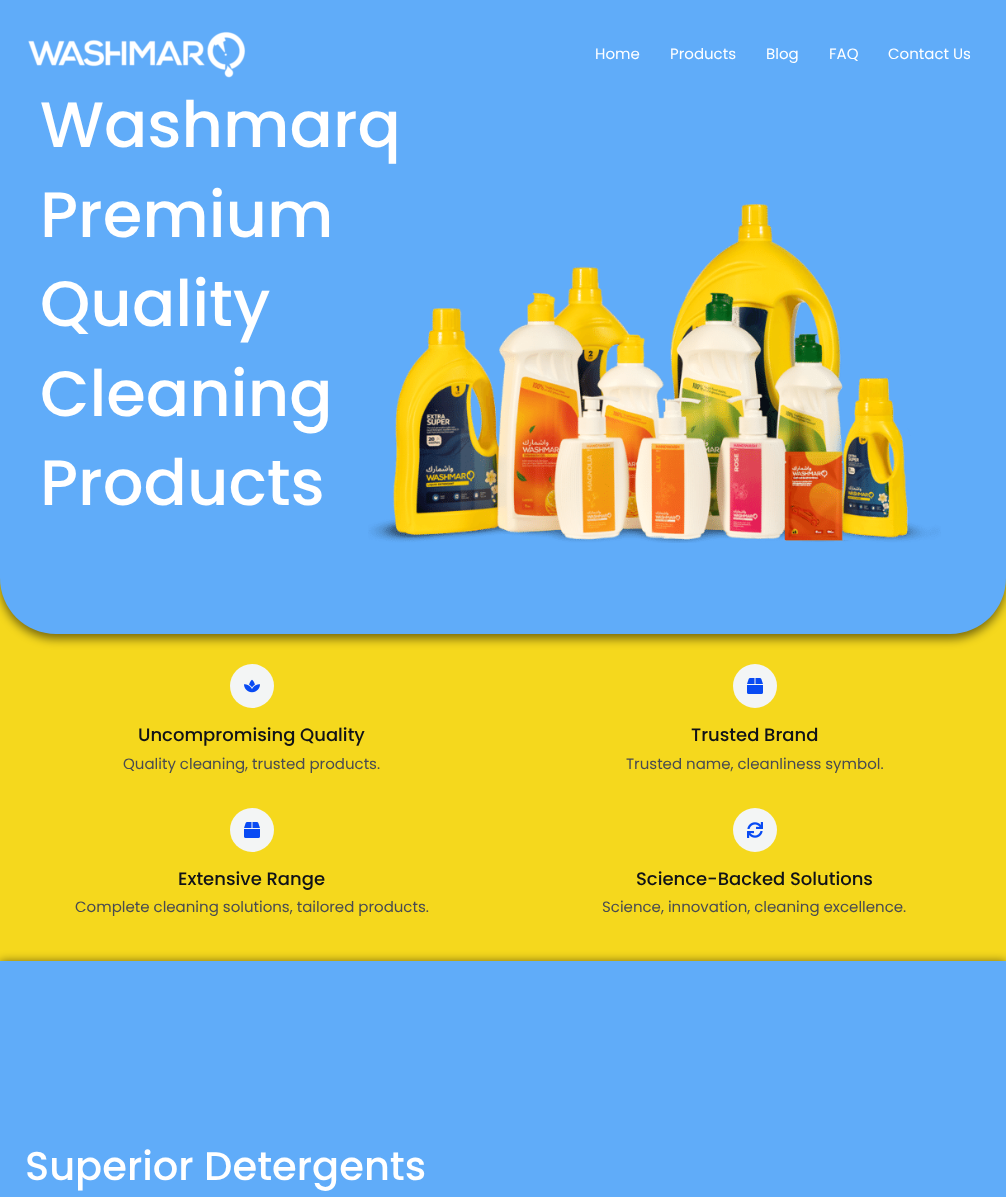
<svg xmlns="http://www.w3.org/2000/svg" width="1006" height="1197">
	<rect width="100%" height="100%" fill="#F5D81D" />
	<rect x="0" y="5" width="1006" height="634" rx="56" fill="#000000" fill-opacity="0.5" filter="blur(5px)" />
	<path d="M0 0H1006V578C1006 609 981 634 950 634H56C25 634 0 609 0 578Z" fill="#60ACF9" />
	<image x="28" y="31" width="218" height="47" href="assets/img1.png" />
	<g font-family="Poppins" font-size="15" fill="#FFFFFF">
		<text x="595" y="59">Home</text>
		<text x="670" y="59">Products</text>
		<text x="766" y="59">Blog</text>
		<text x="829" y="59">FAQ</text>
		<text x="888" y="59">Contact Us</text>
	</g>
	<image x="368" y="203" width="573" height="340" href="assets/img2.png" />
	<g font-family="Poppins" font-size="64" font-weight="500" fill="#FFFFFF">
		<text x="40" y="147">Washmarq</text>
		<text x="40" y="237">Premium</text>
		<text x="40" y="326">Quality</text>
		<text x="40" y="416">Cleaning</text>
		<text x="40" y="505">Products</text>
	</g>
	<circle cx="252" cy="686" r="22" fill="#F3F5F5" />
	<image x="244" y="679" width="16" height="14" href="assets/img3.png" />
	<text x="138" y="741" font-family="Poppins" font-size="18" font-weight="500" fill="#101218">Uncompromising Quality</text>
	<text x="123" y="769" font-family="Poppins" font-size="15" fill="#494B51">Quality cleaning, trusted products.</text>
	<circle cx="252" cy="830" r="22" fill="#F3F5F5" />
	<image x="244" y="822" width="16" height="16" href="assets/img4.png" />
	<text x="178" y="885" font-family="Poppins" font-size="18" font-weight="500" fill="#101218">Extensive Range</text>
	<text x="75" y="912" font-family="Poppins" font-size="15" fill="#494B51">Complete cleaning solutions, tailored products.</text>
	<circle cx="755" cy="686" r="22" fill="#F3F5F5" />
	<image x="747" y="678" width="16" height="16" href="assets/img4.png" />
	<text x="691" y="741" font-family="Poppins" font-size="18" font-weight="500" fill="#101218">Trusted Brand</text>
	<text x="626" y="769" font-family="Poppins" font-size="15" fill="#494B51">Trusted name, cleanliness symbol.</text>
	<circle cx="755" cy="830" r="22" fill="#F3F5F5" />
	<image x="747" y="822" width="16" height="16" href="assets/img5.png" />
	<text x="636" y="885" font-family="Poppins" font-size="18" font-weight="500" fill="#101218">Science-Backed Solutions</text>
	<text x="602" y="912" font-family="Poppins" font-size="15" fill="#494B51">Science, innovation, cleaning excellence.</text>
	<rect x="0" y="961" width="1006" height="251" fill="#000000" fill-opacity="0.5" filter="blur(5px)" />
	<rect x="0" y="961" width="1006" height="236" fill="#60ACF9" />
	<text x="25" y="1180" font-family="Poppins" font-size="40" font-weight="500" fill="#FFFFFF">Superior Detergents</text>
</svg>
